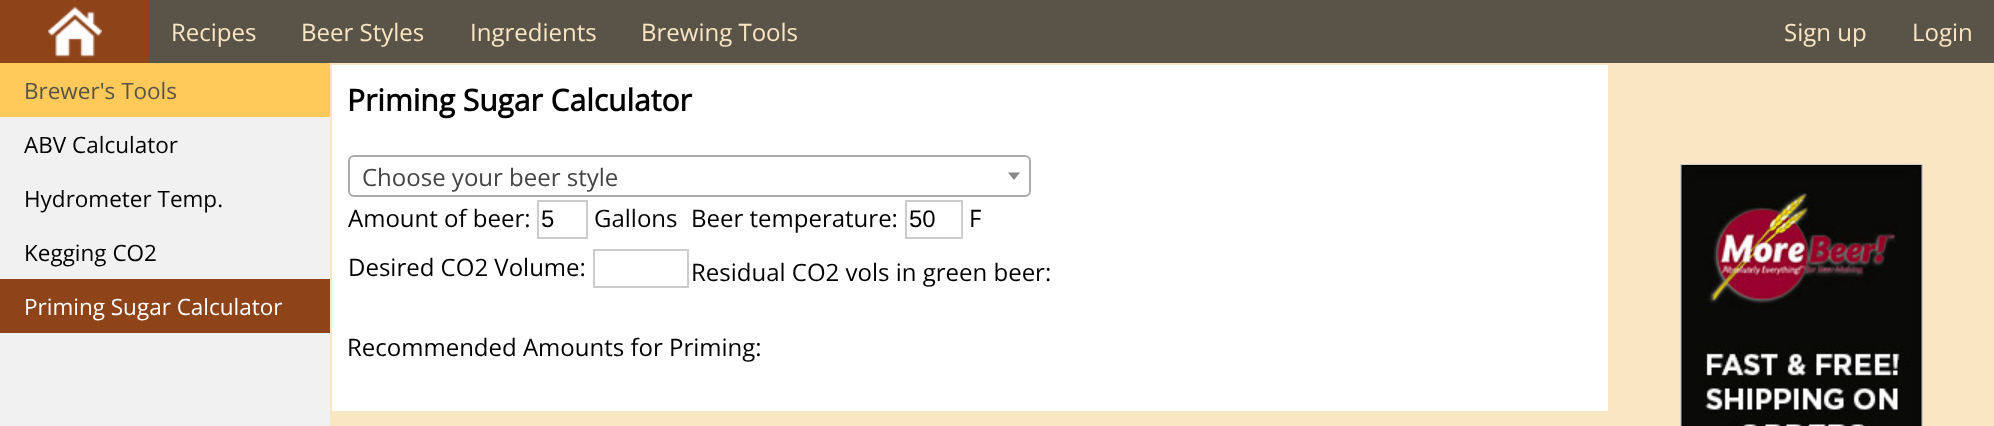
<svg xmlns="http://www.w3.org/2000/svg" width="1994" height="426">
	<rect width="100%" height="100%" fill="#FAE6C3" />
	<rect x="149" y="0" width="1845" height="63" fill="#595348" />
	<rect x="0" y="0" width="149" height="63" fill="#8F4318" />
	<image x="48" y="6" width="54" height="52" href="assets/img1.png" />
	<g font-family="Open Sans" font-size="24" fill="#FAE6C3">
		<text x="171" y="41">Recipes</text>
		<text x="301" y="41">Beer Styles</text>
		<text x="470" y="41">Ingredients</text>
		<text x="641" y="41">Brewing Tools</text>
		<text x="1784" y="41">Sign up</text>
		<text x="1912" y="41">Login</text>
	</g>
	<rect x="0" y="117" width="330" height="309" fill="#F1F1F1" />
	<rect x="0" y="63" width="330" height="54" fill="#FFCA5A" />
	<text x="24" y="99" font-family="Open Sans" font-size="22.5" fill="#595348">Brewer's Tools</text>
	<g font-family="Open Sans" font-size="22.5" fill="#000000">
		<text x="24" y="153">ABV Calculator</text>
		<text x="24" y="207">Hydrometer Temp.</text>
		<text x="24" y="261">Kegging CO2</text>
	</g>
	<rect x="0" y="279" width="330" height="54" fill="#8F4318" />
	<text x="24" y="315" font-family="Open Sans" font-size="22.5" fill="#FFFFFF">Priming Sugar Calculator</text>
	<rect x="332" y="65" width="1276" height="346" fill="#FFFFFF" />
	<text x="347" y="111" font-family="Open Sans" font-size="30" font-weight="700" fill="#000000">Priming Sugar Calculator</text>
	<rect x="349" y="156" width="681" height="40" rx="5" fill="none" stroke="#AAAAAA" stroke-width="2" />
	<text x="362" y="186" font-family="Open Sans" font-size="24" fill="#444444">Choose your beer style</text>
	<path d="M1008 172.5H1020L1014 180Z" fill="#888888" />
	<text x="348" y="227" font-family="Open Sans" font-size="24" fill="#000000">Amount of beer:</text>
	<rect x="538" y="201" width="49" height="37" fill="none" stroke="#CCCCCC" stroke-width="2" />
	<text x="541" y="227" font-family="Liberation Sans" font-size="24" fill="#000000">5</text>
	<g font-family="Open Sans" font-size="24" fill="#000000">
		<text x="594" y="227">Gallons</text>
		<text x="691" y="227">Beer temperature:</text>
	</g>
	<rect x="906" y="201" width="56" height="37" fill="none" stroke="#CCCCCC" stroke-width="2" />
	<text x="909" y="227" font-family="Liberation Sans" font-size="24" fill="#000000">50</text>
	<g font-family="Open Sans" font-size="24" fill="#000000">
		<text x="969" y="227">F</text>
		<text x="348" y="276">Desired CO2 Volume:</text>
	</g>
	<rect x="594" y="250" width="94" height="37" fill="none" stroke="#CCCCCC" stroke-width="2" />
	<g font-family="Open Sans" font-size="24" fill="#000000">
		<text x="691" y="281">Residual CO2 vols in green beer:</text>
		<text x="347" y="356">Recommended Amounts for Priming:</text>
	</g>
	<rect x="1681" y="165" width="241" height="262" fill="none" stroke="#C9C9C9" stroke-width="2" />
	<image x="1681" y="165" width="241" height="261" href="assets/img2.png" />
</svg>
